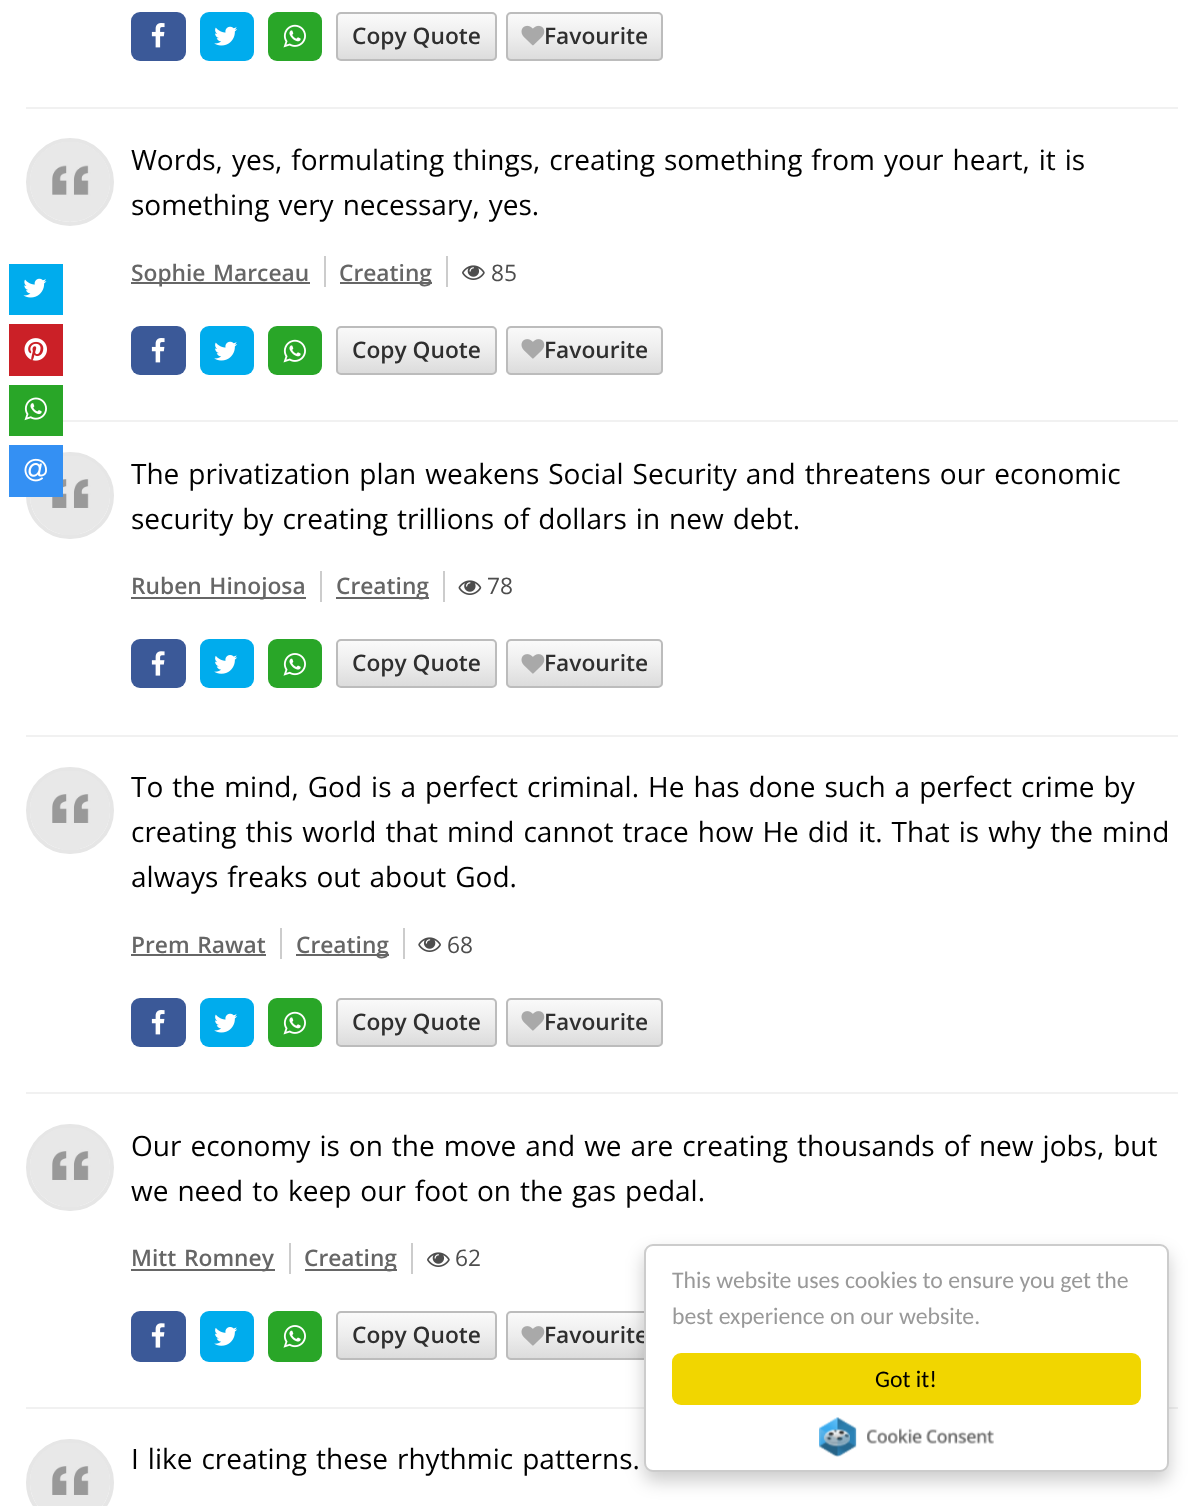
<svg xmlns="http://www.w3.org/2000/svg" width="1203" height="1506">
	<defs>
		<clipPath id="clip1"><rect x="336" y="12" width="161" height="49" rx="5" /></clipPath>
		<linearGradient id="g1" gradientUnits="userSpaceOnUse" x1="417" y1="14" x2="417" y2="60"><stop offset="0" stop-color="#FAFAFA" /><stop offset="0.5" stop-color="#EDEDED" /><stop offset="1" stop-color="#DCDCDC" /></linearGradient>
		<clipPath id="clip2"><rect x="506" y="12" width="157" height="49" rx="5" /></clipPath>
		<linearGradient id="g2" gradientUnits="userSpaceOnUse" x1="585" y1="14" x2="585" y2="60"><stop offset="0" stop-color="#FAFAFA" /><stop offset="0.5" stop-color="#EDEDED" /><stop offset="1" stop-color="#DCDCDC" /></linearGradient>
		<clipPath id="clip3"><rect x="336" y="326" width="161" height="49" rx="5" /></clipPath>
		<linearGradient id="g3" gradientUnits="userSpaceOnUse" x1="417" y1="327" x2="417" y2="373"><stop offset="0" stop-color="#FAFAFA" /><stop offset="0.5" stop-color="#EDEDED" /><stop offset="1" stop-color="#DCDCDC" /></linearGradient>
		<clipPath id="clip4"><rect x="506" y="326" width="157" height="49" rx="5" /></clipPath>
		<linearGradient id="g4" gradientUnits="userSpaceOnUse" x1="585" y1="327" x2="585" y2="373"><stop offset="0" stop-color="#FAFAFA" /><stop offset="0.5" stop-color="#EDEDED" /><stop offset="1" stop-color="#DCDCDC" /></linearGradient>
		<clipPath id="clip5"><rect x="336" y="639" width="161" height="49" rx="5" /></clipPath>
		<linearGradient id="g5" gradientUnits="userSpaceOnUse" x1="417" y1="641" x2="417" y2="686"><stop offset="0" stop-color="#FAFAFA" /><stop offset="0.5" stop-color="#EDEDED" /><stop offset="1" stop-color="#DCDCDC" /></linearGradient>
		<clipPath id="clip6"><rect x="506" y="639" width="157" height="49" rx="5" /></clipPath>
		<linearGradient id="g6" gradientUnits="userSpaceOnUse" x1="585" y1="641" x2="585" y2="686"><stop offset="0" stop-color="#FAFAFA" /><stop offset="0.5" stop-color="#EDEDED" /><stop offset="1" stop-color="#DCDCDC" /></linearGradient>
		<clipPath id="clip7"><rect x="336" y="998" width="161" height="49" rx="5" /></clipPath>
		<linearGradient id="g7" gradientUnits="userSpaceOnUse" x1="417" y1="999" x2="417" y2="1045"><stop offset="0" stop-color="#FAFAFA" /><stop offset="0.5" stop-color="#EDEDED" /><stop offset="1" stop-color="#DCDCDC" /></linearGradient>
		<clipPath id="clip8"><rect x="506" y="998" width="157" height="49" rx="5" /></clipPath>
		<linearGradient id="g8" gradientUnits="userSpaceOnUse" x1="585" y1="999" x2="585" y2="1045"><stop offset="0" stop-color="#FAFAFA" /><stop offset="0.5" stop-color="#EDEDED" /><stop offset="1" stop-color="#DCDCDC" /></linearGradient>
		<clipPath id="clip9"><rect x="336" y="1311" width="161" height="49" rx="5" /></clipPath>
		<linearGradient id="g9" gradientUnits="userSpaceOnUse" x1="417" y1="1313" x2="417" y2="1358"><stop offset="0" stop-color="#FAFAFA" /><stop offset="0.5" stop-color="#EDEDED" /><stop offset="1" stop-color="#DCDCDC" /></linearGradient>
		<clipPath id="clip10"><rect x="506" y="1311" width="157" height="49" rx="5" /></clipPath>
		<linearGradient id="g10" gradientUnits="userSpaceOnUse" x1="585" y1="1313" x2="585" y2="1358"><stop offset="0" stop-color="#FAFAFA" /><stop offset="0.5" stop-color="#EDEDED" /><stop offset="1" stop-color="#DCDCDC" /></linearGradient>
	</defs>
	<rect width="100%" height="100%" fill="#FFFFFF" />
	<rect x="9" y="264" width="54" height="51" fill="#00ACED" />
	<image x="23" y="278" width="24" height="20" href="assets/img1.png" />
	<rect x="9" y="324" width="54" height="52" fill="#CB2027" />
	<image x="24" y="338" width="23" height="23" href="assets/img2.png" />
	<rect x="9" y="385" width="54" height="51" fill="#29A628" />
	<image x="24" y="397" width="23" height="24" href="assets/img3.png" />
	<rect x="28" y="454" width="84" height="83" rx="41.5" fill="none" stroke="#E6E6E6" stroke-width="4" />
	<image x="30" y="456" width="80" height="79" href="assets/img14.png" />
	<rect x="9" y="445" width="54" height="52" fill="#3490F3" />
	<image x="24" y="458" width="23" height="24" href="assets/img4.png" />
	<rect x="26" y="107" width="1152" height="2" fill="#F1F1F1" />
	<rect x="131" y="12" width="55" height="49" rx="9" fill="#3B5998" />
	<image x="151" y="23" width="14" height="25" href="assets/img5.png" />
	<rect x="200" y="12" width="54" height="49" rx="9" fill="#00ACED" />
	<image x="214" y="26" width="24" height="20" href="assets/img6.png" />
	<rect x="268" y="12" width="54" height="49" rx="9" fill="#29A628" />
	<image x="283" y="24" width="23" height="24" href="assets/img7.png" />
	<g clip-path="url(#clip1)">
		<rect x="336" y="14" width="161" height="46" fill="url(#g1)" />
	</g>
	<rect x="337" y="13" width="159" height="47" rx="4" fill="none" stroke="#BCBCBC" stroke-width="2" />
	<text x="352" y="44" font-family="Open Sans" font-size="22.75" font-weight="600" fill="#2F2F2F">Copy Quote</text>
	<g clip-path="url(#clip2)">
		<rect x="506" y="14" width="157" height="46" fill="url(#g2)" />
	</g>
	<rect x="507" y="13" width="155" height="47" rx="4" fill="none" stroke="#BCBCBC" stroke-width="2" />
	<image x="521" y="25" width="24" height="21" href="assets/img8.png" />
	<text x="544" y="44" font-family="Open Sans" font-size="22.75" font-weight="600" fill="#2F2F2F">Favourite</text>
	<rect x="63" y="420" width="1115" height="2" fill="#F1F1F1" />
	<circle cx="70" cy="182" r="42" fill="none" stroke="#E6E6E6" stroke-width="4" />
	<image x="30" y="142" width="80" height="80" href="assets/img9.png" />
	<g font-family="Open Sans" font-size="28" fill="#000000">
		<text x="131" y="170" word-spacing="1.75">Words, yes, formulating things, creating something from your heart, it is</text>
		<text x="131" y="215" word-spacing="1.75">something very necessary, yes.</text>
	</g>
	<rect x="131" y="282" width="179" height="2" fill="#666666" />
	<text x="131" y="281" word-spacing="1.75" font-family="Open Sans" font-size="22.75" font-weight="600" fill="#666666">Sophie Marceau</text>
	<rect x="324" y="256" width="2" height="31" fill="#CCCCCC" />
	<rect x="340" y="282" width="92" height="2" fill="#666666" />
	<text x="339" y="281" font-family="Open Sans" font-size="22.75" font-weight="600" fill="#666666">Creating</text>
	<rect x="446" y="256" width="2" height="31" fill="#CCCCCC" />
	<image x="462" y="265" width="23" height="15" href="assets/img10.png" />
	<text x="491" y="281" font-family="Open Sans" font-size="22.75" fill="#4D4D4D">85</text>
	<rect x="131" y="326" width="55" height="49" rx="9" fill="#3B5998" />
	<image x="151" y="338" width="14" height="25" href="assets/img5.png" />
	<rect x="200" y="326" width="54" height="49" rx="9" fill="#00ACED" />
	<image x="214" y="341" width="24" height="20" href="assets/img11.png" />
	<rect x="268" y="326" width="54" height="49" rx="9" fill="#29A628" />
	<image x="283" y="339" width="23" height="24" href="assets/img12.png" />
	<g clip-path="url(#clip3)">
		<rect x="336" y="327" width="161" height="46" fill="url(#g3)" />
	</g>
	<rect x="337" y="327" width="159" height="47" rx="4" fill="none" stroke="#BCBCBC" stroke-width="2" />
	<text x="352" y="358" font-family="Open Sans" font-size="22.75" font-weight="600" fill="#2F2F2F">Copy Quote</text>
	<g clip-path="url(#clip4)">
		<rect x="506" y="327" width="157" height="46" fill="url(#g4)" />
	</g>
	<rect x="507" y="327" width="155" height="47" rx="4" fill="none" stroke="#BCBCBC" stroke-width="2" />
	<image x="521" y="339" width="24" height="20" href="assets/img13.png" />
	<text x="544" y="358" font-family="Open Sans" font-size="22.75" font-weight="600" fill="#2F2F2F">Favourite</text>
	<rect x="26" y="735" width="1152" height="2" fill="#F1F1F1" />
	<g font-family="Open Sans" font-size="28" fill="#000000">
		<text x="131" y="484" word-spacing="1.75">The privatization plan weakens Social Security and threatens our economic</text>
		<text x="131" y="529" word-spacing="1.75">security by creating trillions of dollars in new debt.</text>
	</g>
	<rect x="131" y="597" width="175" height="2" fill="#666666" />
	<text x="131" y="594" word-spacing="1.75" font-family="Open Sans" font-size="22.75" font-weight="600" fill="#666666">Ruben Hinojosa</text>
	<rect x="320" y="571" width="2" height="31" fill="#CCCCCC" />
	<rect x="336" y="597" width="93" height="2" fill="#666666" />
	<text x="336" y="594" font-family="Open Sans" font-size="22.75" font-weight="600" fill="#666666">Creating</text>
	<rect x="443" y="571" width="2" height="31" fill="#CCCCCC" />
	<image x="458" y="580" width="24" height="15" href="assets/img15.png" />
	<text x="487" y="594" font-family="Open Sans" font-size="22.75" fill="#4D4D4D">78</text>
	<rect x="131" y="639" width="55" height="49" rx="9" fill="#3B5998" />
	<image x="151" y="651" width="14" height="25" href="assets/img16.png" />
	<rect x="200" y="639" width="54" height="49" rx="9" fill="#00ACED" />
	<image x="214" y="655" width="24" height="19" href="assets/img17.png" />
	<rect x="268" y="639" width="54" height="49" rx="9" fill="#29A628" />
	<image x="283" y="653" width="23" height="23" href="assets/img18.png" />
	<g clip-path="url(#clip5)">
		<rect x="336" y="641" width="161" height="45" fill="url(#g5)" />
	</g>
	<rect x="337" y="640" width="159" height="47" rx="4" fill="none" stroke="#BCBCBC" stroke-width="2" />
	<text x="352" y="671" font-family="Open Sans" font-size="22.75" font-weight="600" fill="#2F2F2F">Copy Quote</text>
	<g clip-path="url(#clip6)">
		<rect x="506" y="641" width="157" height="45" fill="url(#g6)" />
	</g>
	<rect x="507" y="640" width="155" height="47" rx="4" fill="none" stroke="#BCBCBC" stroke-width="2" />
	<image x="521" y="654" width="24" height="20" href="assets/img19.png" />
	<text x="544" y="671" font-family="Open Sans" font-size="22.75" font-weight="600" fill="#2F2F2F">Favourite</text>
	<rect x="26" y="1092" width="1152" height="2" fill="#F1F1F1" />
	<rect x="28" y="769" width="84" height="83" rx="41.5" fill="none" stroke="#E6E6E6" stroke-width="4" />
	<image x="30" y="771" width="80" height="79" href="assets/img14.png" />
	<g font-family="Open Sans" font-size="28" fill="#000000">
		<text x="131" y="797" word-spacing="1.75">To the mind, God is a perfect criminal. He has done such a perfect crime by</text>
		<text x="131" y="842" word-spacing="1.75">creating this world that mind cannot trace how He did it. That is why the mind</text>
		<text x="131" y="887" word-spacing="1.75">always freaks out about God.</text>
	</g>
	<text x="131" y="953" word-spacing="1.75" font-family="Open Sans" font-size="22.75" font-weight="600" fill="#666666">Prem Rawat</text>
	<rect x="280" y="928" width="2" height="31" fill="#CCCCCC" />
	<rect x="131" y="954" width="135" height="2" fill="#666666" />
	<rect x="296" y="954" width="93" height="2" fill="#666666" />
	<text x="296" y="953" font-family="Open Sans" font-size="22.75" font-weight="600" fill="#666666">Creating</text>
	<rect x="403" y="928" width="2" height="31" fill="#CCCCCC" />
	<image x="418" y="937" width="23" height="15" href="assets/img20.png" />
	<text x="447" y="953" font-family="Open Sans" font-size="22.75" fill="#4D4D4D">68</text>
	<rect x="131" y="998" width="55" height="49" rx="9" fill="#3B5998" />
	<image x="151" y="1010" width="14" height="25" href="assets/img5.png" />
	<rect x="200" y="998" width="54" height="49" rx="9" fill="#00ACED" />
	<image x="214" y="1013" width="24" height="20" href="assets/img21.png" />
	<rect x="268" y="998" width="54" height="49" rx="9" fill="#29A628" />
	<image x="283" y="1011" width="23" height="24" href="assets/img22.png" />
	<g clip-path="url(#clip7)">
		<rect x="336" y="999" width="161" height="46" fill="url(#g7)" />
	</g>
	<rect x="337" y="999" width="159" height="47" rx="4" fill="none" stroke="#BCBCBC" stroke-width="2" />
	<text x="352" y="1030" font-family="Open Sans" font-size="22.75" font-weight="600" fill="#2F2F2F">Copy Quote</text>
	<g clip-path="url(#clip8)">
		<rect x="506" y="999" width="157" height="46" fill="url(#g8)" />
	</g>
	<rect x="507" y="999" width="155" height="47" rx="4" fill="none" stroke="#BCBCBC" stroke-width="2" />
	<image x="521" y="1011" width="24" height="20" href="assets/img13.png" />
	<text x="544" y="1030" font-family="Open Sans" font-size="22.75" font-weight="600" fill="#2F2F2F">Favourite</text>
	<rect x="26" y="1407" width="1152" height="2" fill="#F1F1F1" />
	<rect x="28" y="1126" width="84" height="83" rx="41.5" fill="none" stroke="#E6E6E6" stroke-width="4" />
	<image x="30" y="1128" width="80" height="79" href="assets/img23.png" />
	<g font-family="Open Sans" font-size="28" fill="#000000">
		<text x="131" y="1156" word-spacing="1.75">Our economy is on the move and we are creating thousands of new jobs, but</text>
		<text x="131" y="1201" word-spacing="1.75">we need to keep our foot on the gas pedal.</text>
	</g>
	<rect x="131" y="1269" width="144" height="2" fill="#666666" />
	<text x="131" y="1266" word-spacing="1.75" font-family="Open Sans" font-size="22.75" font-weight="600" fill="#666666">Mitt Romney</text>
	<rect x="289" y="1243" width="2" height="31" fill="#CCCCCC" />
	<rect x="305" y="1269" width="92" height="2" fill="#666666" />
	<text x="304" y="1266" font-family="Open Sans" font-size="22.75" font-weight="600" fill="#666666">Creating</text>
	<rect x="411" y="1243" width="2" height="31" fill="#CCCCCC" />
	<image x="427" y="1252" width="23" height="15" href="assets/img10.png" />
	<text x="455" y="1266" font-family="Open Sans" font-size="22.75" fill="#4D4D4D">62</text>
	<rect x="131" y="1311" width="55" height="51" rx="9" fill="#3B5998" />
	<image x="151" y="1323" width="14" height="25" href="assets/img16.png" />
	<rect x="200" y="1311" width="54" height="51" rx="9" fill="#00ACED" />
	<image x="214" y="1327" width="24" height="19" href="assets/img17.png" />
	<rect x="268" y="1311" width="54" height="51" rx="9" fill="#29A628" />
	<image x="283" y="1325" width="23" height="23" href="assets/img18.png" />
	<g clip-path="url(#clip9)">
		<rect x="336" y="1313" width="161" height="45" fill="url(#g9)" />
	</g>
	<rect x="337" y="1312" width="159" height="47" rx="4" fill="none" stroke="#BCBCBC" stroke-width="2" />
	<text x="352" y="1343" font-family="Open Sans" font-size="22.75" font-weight="600" fill="#2F2F2F">Copy Quote</text>
	<g clip-path="url(#clip10)">
		<rect x="506" y="1313" width="138" height="45" fill="url(#g10)" />
	</g>
	<rect x="507" y="1312" width="155" height="47" rx="4" fill="none" stroke="#BCBCBC" stroke-width="2" />
	<image x="521" y="1326" width="24" height="20" href="assets/img19.png" />
	<text x="544" y="1343" font-family="Open Sans" font-size="22.75" font-weight="600" fill="#2F2F2F">Favourite</text>
	<rect x="28" y="1441" width="84" height="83" rx="41.5" fill="none" stroke="#E6E6E6" stroke-width="4" />
	<image x="30" y="1443" width="80" height="63" href="assets/img24.png" />
	<text x="131" y="1469" word-spacing="1.75" font-family="Open Sans" font-size="28" fill="#000000">I like creating these rhythmic patterns.</text>
	<rect x="644" y="1253" width="525" height="228" rx="9" fill="#000000" fill-opacity="0.2" filter="blur(9px)" />
	<rect x="645" y="1245" width="523" height="226" rx="8" fill="#FFFFFF" stroke="#CCCCCC" stroke-width="2" />
	<g font-family="Carlito" font-size="23.75" fill="#999999">
		<text x="672" y="1288">This website uses cookies to ensure you get the</text>
		<text x="672" y="1324">best experience on our website.</text>
	</g>
	<rect x="672" y="1353" width="469" height="52" rx="9" fill="#F1D600" />
	<text x="875" y="1387" font-family="Carlito" font-size="23.75" fill="#000000">Got it!</text>
	<image x="819" y="1417" width="175" height="40" href="assets/img25.png" />
</svg>
